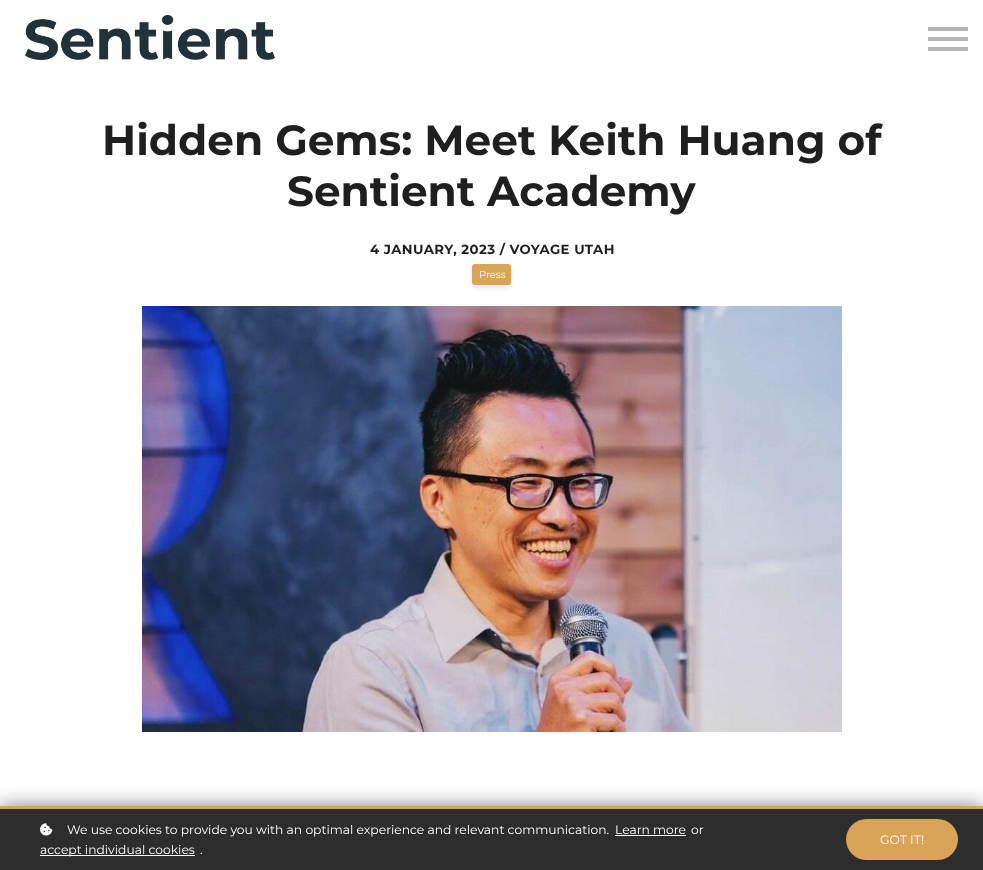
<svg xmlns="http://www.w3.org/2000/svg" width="983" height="870">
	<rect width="100%" height="100%" fill="#FFFFFF" />
	<image x="25" y="15" width="250" height="45" href="assets/img1.png" />
	<rect x="928" y="47" width="40" height="4" fill="#B4B4B4" />
	<rect x="928" y="27" width="40" height="4" fill="#B4B4B4" />
	<rect x="928" y="37" width="40" height="4" fill="#B4B4B4" />
	<g font-family="Montserrat" font-size="42.25" font-weight="700" fill="#1F1F1F">
		<text x="102" y="155">Hidden Gems: Meet Keith Huang of</text>
		<text x="287" y="206">Sentient Academy</text>
	</g>
	<text x="370" y="254" font-family="Montserrat" font-size="13.25" font-weight="700" letter-spacing="0.45" fill="#1F1F1F">4 JANUARY, 2023 / VOYAGE UTAH</text>
	<rect x="472" y="267" width="39" height="21" rx="3" fill="#000000" fill-opacity="0.1" filter="blur(2.5px)" />
	<rect x="472" y="264" width="39" height="21" rx="3" fill="#D9A358" />
	<text x="479" y="278" font-family="Montserrat" font-size="10" fill="#FFFFFF">Press</text>
	<image x="142" y="306" width="700" height="426" href="assets/img2.png" />
	<rect x="0" y="806" width="983" height="64" fill="#000000" fill-opacity="0.5" filter="blur(10px)" />
	<rect x="0" y="809" width="983" height="61" fill="#2D2D2D" />
	<rect x="0" y="806" width="983" height="3" fill="#D9A358" />
	<image x="40" y="823" width="13" height="13" href="assets/img3.png" />
	<g font-family="Montserrat" font-size="12.3" fill="#FFFFFF">
		<text x="67" y="834">We use cookies to provide you with an optimal experience and relevant communication.</text>
		<text x="615" y="834">Learn more</text>
	</g>
	<rect x="615" y="835" width="71" height="1" fill="#FFFFFF" />
	<text x="691" y="834" font-family="Montserrat" font-size="12.3" fill="#FFFFFF">or</text>
	<rect x="40" y="855" width="155" height="1" fill="#FFFFFF" />
	<g font-family="Montserrat" font-size="12.3" fill="#FFFFFF">
		<text x="40" y="854">accept individual cookies</text>
		<text x="200" y="854">.</text>
	</g>
	<rect x="846" y="819" width="112" height="41" rx="20.5" fill="#D9A358" />
	<text x="880" y="844" font-family="Montserrat" font-size="12.3" fill="#FFFFFF">GOT IT!</text>
</svg>
